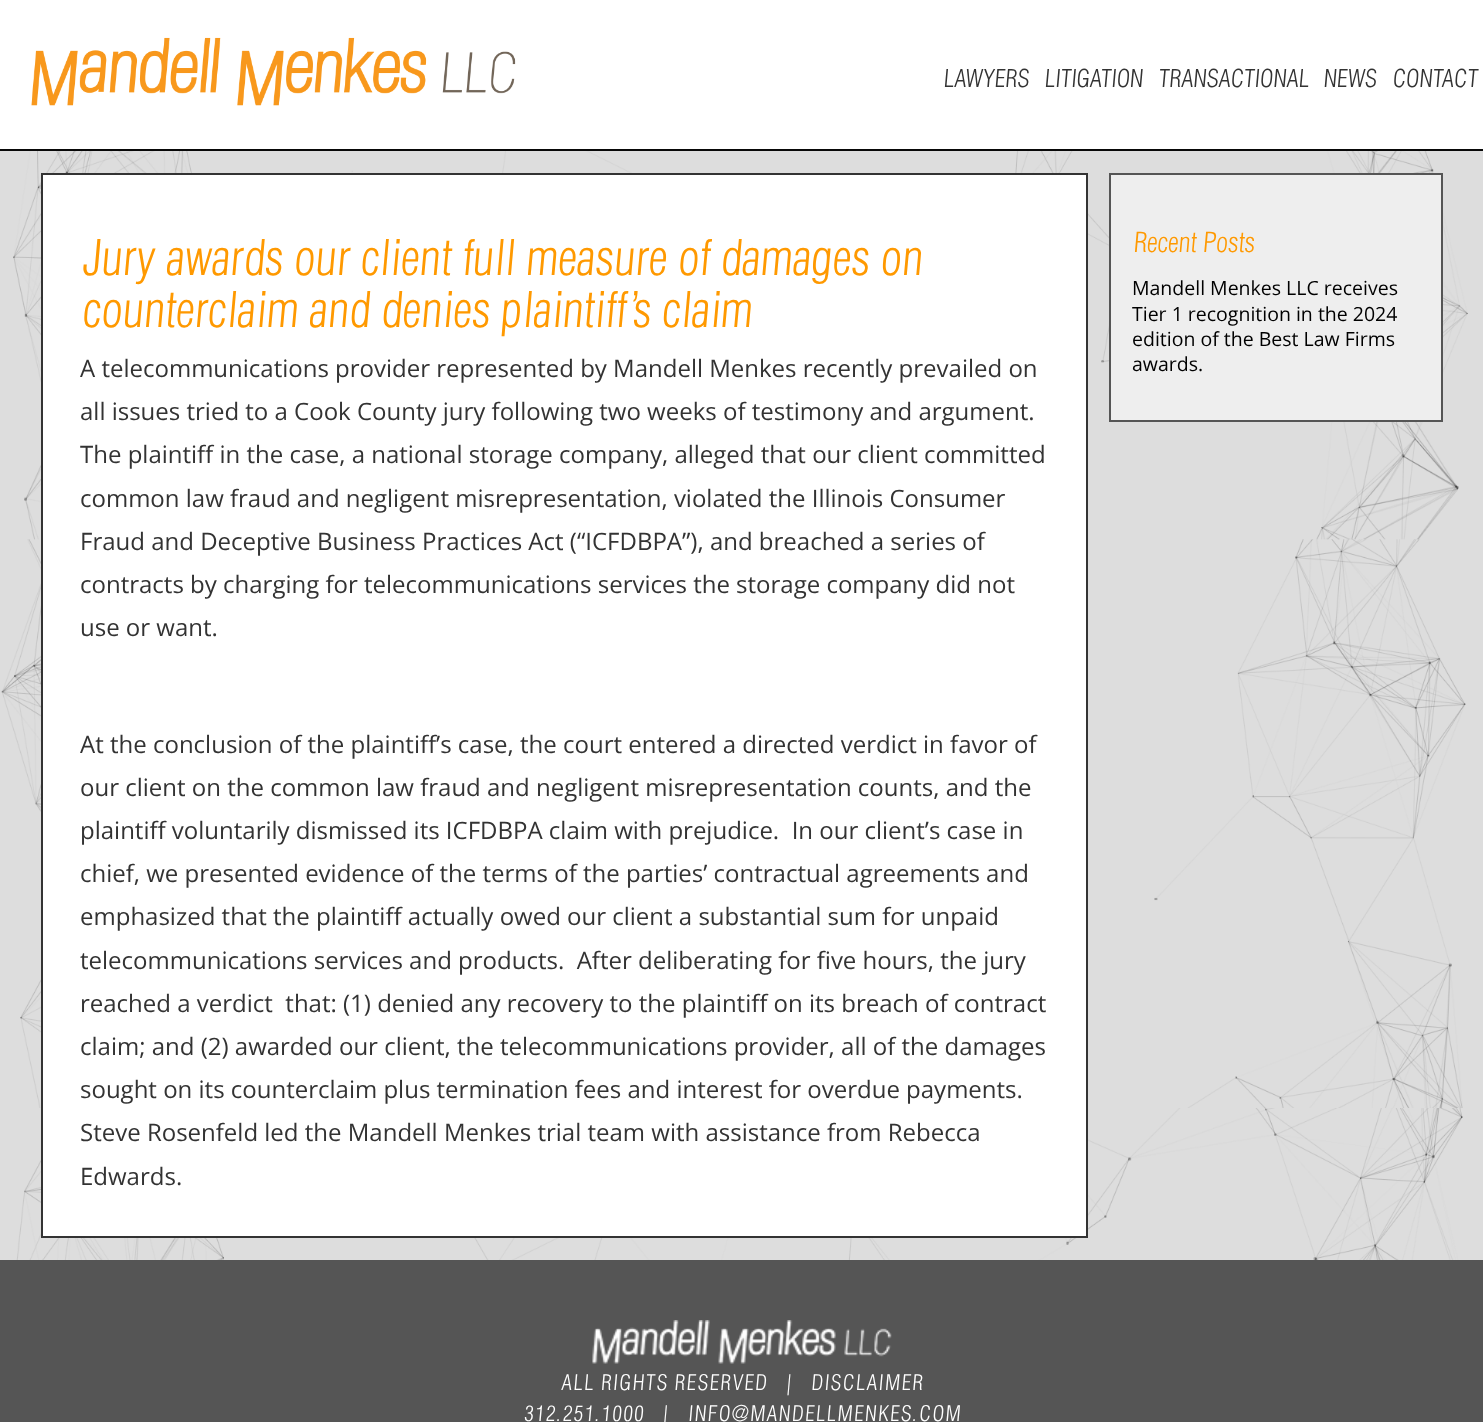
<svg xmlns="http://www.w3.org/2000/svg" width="1483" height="1422">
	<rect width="100%" height="100%" fill="#FFFFFF" />
	<image x="0" y="151" width="1483" height="1109" href="assets/img1.png" />
	<rect x="0" y="149" width="1483" height="2" fill="#080808" />
	<image x="31" y="37" width="485" height="69" href="assets/img2.png" />
	<g font-family="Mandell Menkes" font-size="24" font-weight="300" font-style="italic" fill="#333333">
		<text x="942" y="87">LAWYERS</text>
		<text x="1043" y="87">LITIGATION</text>
		<text x="1157" y="87">TRANSACTIONAL</text>
		<text x="1322" y="87">NEWS</text>
		<text x="1391" y="87">CONTACT</text>
	</g>
	<rect x="42" y="174" width="1045" height="1063" fill="#FFFFFF" stroke="#333333" stroke-width="2" />
	<g font-family="Mandell Menkes" font-size="48" font-weight="300" font-style="italic" fill="#FF9900">
		<text x="80" y="275">Jury awards our client full measure of damages on</text>
		<text x="80" y="327">counterclaim and denies plaintiff’s claim</text>
	</g>
	<g font-family="Open Sans" font-size="24" fill="#333333">
		<text x="80" y="377">A telecommunications provider represented by Mandell Menkes recently prevailed on</text>
		<text x="80" y="420">all issues tried to a Cook County jury following two weeks of testimony and argument.</text>
		<text x="80" y="463">The plaintiff in the case, a national storage company, alleged that our client committed</text>
		<text x="80" y="507">common law fraud and negligent misrepresentation, violated the Illinois Consumer</text>
		<text x="80" y="550">Fraud and Deceptive Business Practices Act (“ICFDBPA”), and breached a series of</text>
		<text x="80" y="593">contracts by charging for telecommunications services the storage company did not</text>
		<text x="80" y="636">use or want.</text>
		<text x="80" y="753">At the conclusion of the plaintiff’s case, the court entered a directed verdict in favor of</text>
		<text x="80" y="796">our client on the common law fraud and negligent misrepresentation counts, and the</text>
		<text x="80" y="839" xml:space="preserve">plaintiff voluntarily dismissed its ICFDBPA claim with prejudice.  In our client’s case in</text>
		<text x="80" y="882">chief, we presented evidence of the terms of the parties’ contractual agreements and</text>
		<text x="80" y="925">emphasized that the plaintiff actually owed our client a substantial sum for unpaid</text>
		<text x="80" y="969" xml:space="preserve">telecommunications services and products.  After deliberating for five hours, the jury</text>
		<text x="80" y="1012" xml:space="preserve">reached a verdict  that: (1) denied any recovery to the plaintiff on its breach of contract</text>
		<text x="80" y="1055">claim; and (2) awarded our client, the telecommunications provider, all of the damages</text>
		<text x="80" y="1098">sought on its counterclaim plus termination fees and interest for overdue payments.</text>
		<text x="80" y="1141">Steve Rosenfeld led the Mandell Menkes trial team with assistance from Rebecca</text>
		<text x="80" y="1185">Edwards.</text>
	</g>
	<rect x="1110" y="174" width="332" height="247" fill="#EEEEEE" stroke="#555555" stroke-width="2" />
	<text x="1132" y="252" font-family="Mandell Menkes" font-size="27" font-weight="300" font-style="italic" fill="#FF9900">Recent Posts</text>
	<g font-family="Open Sans" font-size="19.5" fill="#000000">
		<text x="1132" y="295">Mandell Menkes LLC receives</text>
		<text x="1132" y="321">Tier 1 recognition in the 2024</text>
		<text x="1132" y="346">edition of the Best Law Firms</text>
		<text x="1132" y="371">awards.</text>
	</g>
	<rect x="0" y="1260" width="1483" height="162" fill="#555555" />
	<image x="592" y="1320" width="300" height="44" href="assets/img3.png" />
	<g font-family="Mandell Menkes" font-size="21" font-weight="300" font-style="italic" letter-spacing="1.5" fill="#FFFFFF">
		<text x="560" y="1390" xml:space="preserve">ALL RIGHTS RESERVED   |</text>
		<text x="810" y="1390">DISCLAIMER</text>
		<text x="523" y="1421">312.251.1000</text>
		<text x="662" y="1421">|</text>
		<text x="687" y="1421">INFO@MANDELLMENKES.COM</text>
	</g>
</svg>
